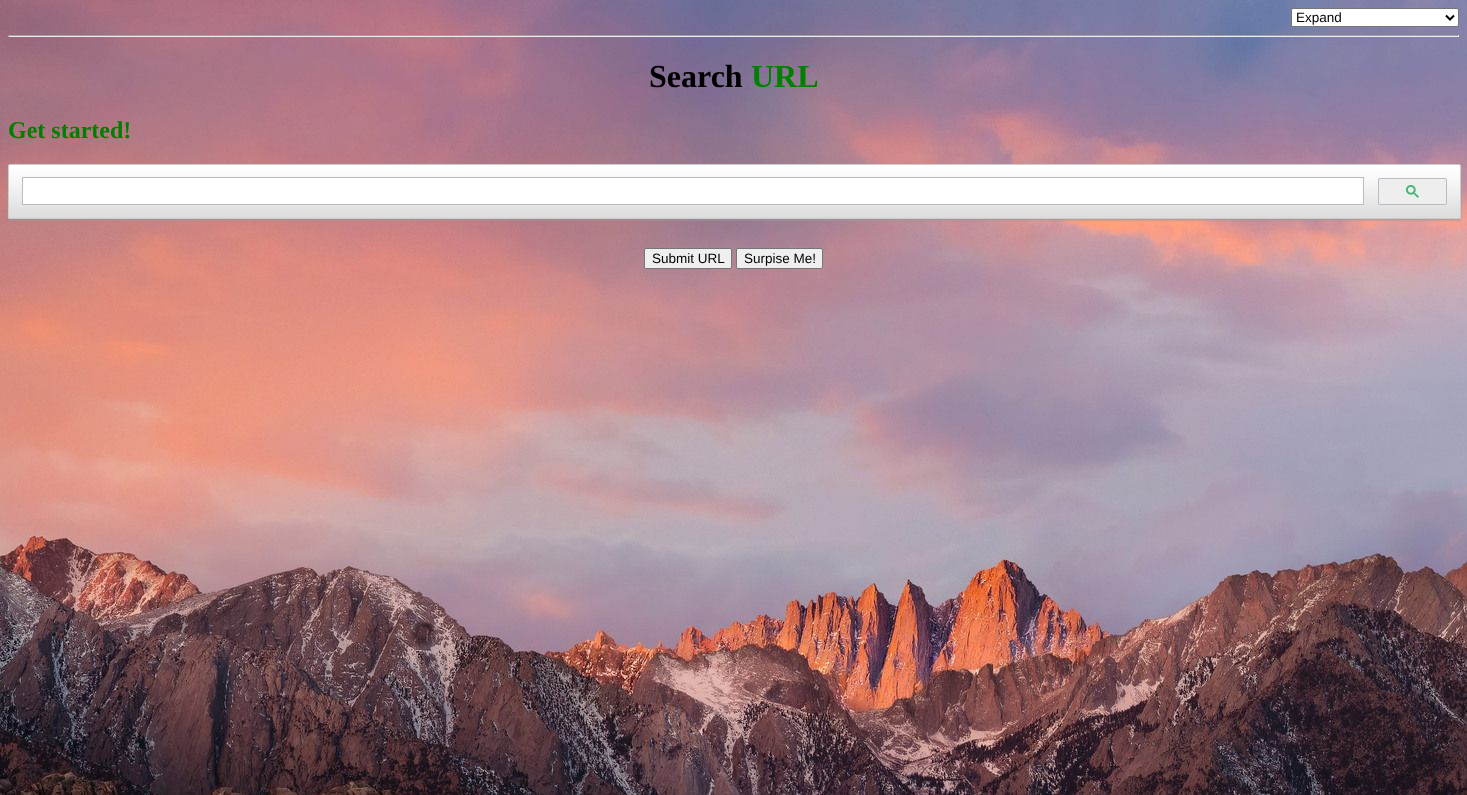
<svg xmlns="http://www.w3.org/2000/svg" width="1467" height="795">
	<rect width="100%" height="100%" fill="#FFFFFF" />
	<image x="0" y="0" width="1467" height="795" href="assets/img1.png" />
	<rect x="1291.5" y="8.5" width="167" height="18" rx="1.5" fill="#FFFFFF" stroke="#767676" />
	<path d="M1446 15.5L1450 19.5L1454 15.5" fill="none" stroke="#000000" stroke-width="2" />
	<text x="1296" y="22" font-family="Liberation Sans" font-size="13.5" fill="#000000">Expand</text>
	<rect x="8" y="35" width="1451" height="1" fill="#9F9F9F" />
	<rect x="1458" y="35" width="1" height="2" fill="#EEEEEE" />
	<rect x="8" y="36" width="1451" height="1" fill="#EEEEEE" />
	<rect x="8" y="35" width="1" height="2" fill="#9F9F9F" />
	<text x="649" y="87" font-family="Liberation Serif" font-size="32" font-weight="700" fill="#000000">Search</text>
	<text x="751" y="87" font-family="Liberation Serif" font-size="32" font-weight="700" fill="#008000">URL</text>
	<text x="8" y="138" font-family="Liberation Serif" font-size="24" font-weight="700" fill="#008000">Get started!</text>
	<rect x="8" y="165" width="1453" height="55" rx="2" fill="#999999" filter="blur(1px)" />
	<image x="8" y="165" width="1453" height="54" href="assets/img2.png" />
	<rect x="8.5" y="164.5" width="1452" height="54" rx="1.5" fill="none" stroke="#CCCCCC" />
	<rect x="22.5" y="177.5" width="1341" height="27" fill="#FFFFFF" stroke="#B6BEC5" />
	<rect x="1378.5" y="178.5" width="68" height="26" rx="1.5" fill="#EEEEEE" stroke="#B6BEC5" />
	<image x="1406" y="185" width="13" height="13" href="assets/img3.png" />
	<rect x="644.5" y="248.5" width="87" height="20" rx="1.5" fill="#EFEFEF" stroke="#767676" />
	<text x="652" y="263" font-family="Liberation Sans" font-size="13.5" fill="#000000">Submit URL</text>
	<rect x="736.5" y="248.5" width="86" height="20" rx="1.5" fill="#EFEFEF" stroke="#767676" />
	<text x="744" y="263" font-family="Liberation Sans" font-size="13.5" fill="#000000">Surpise Me!</text>
</svg>
